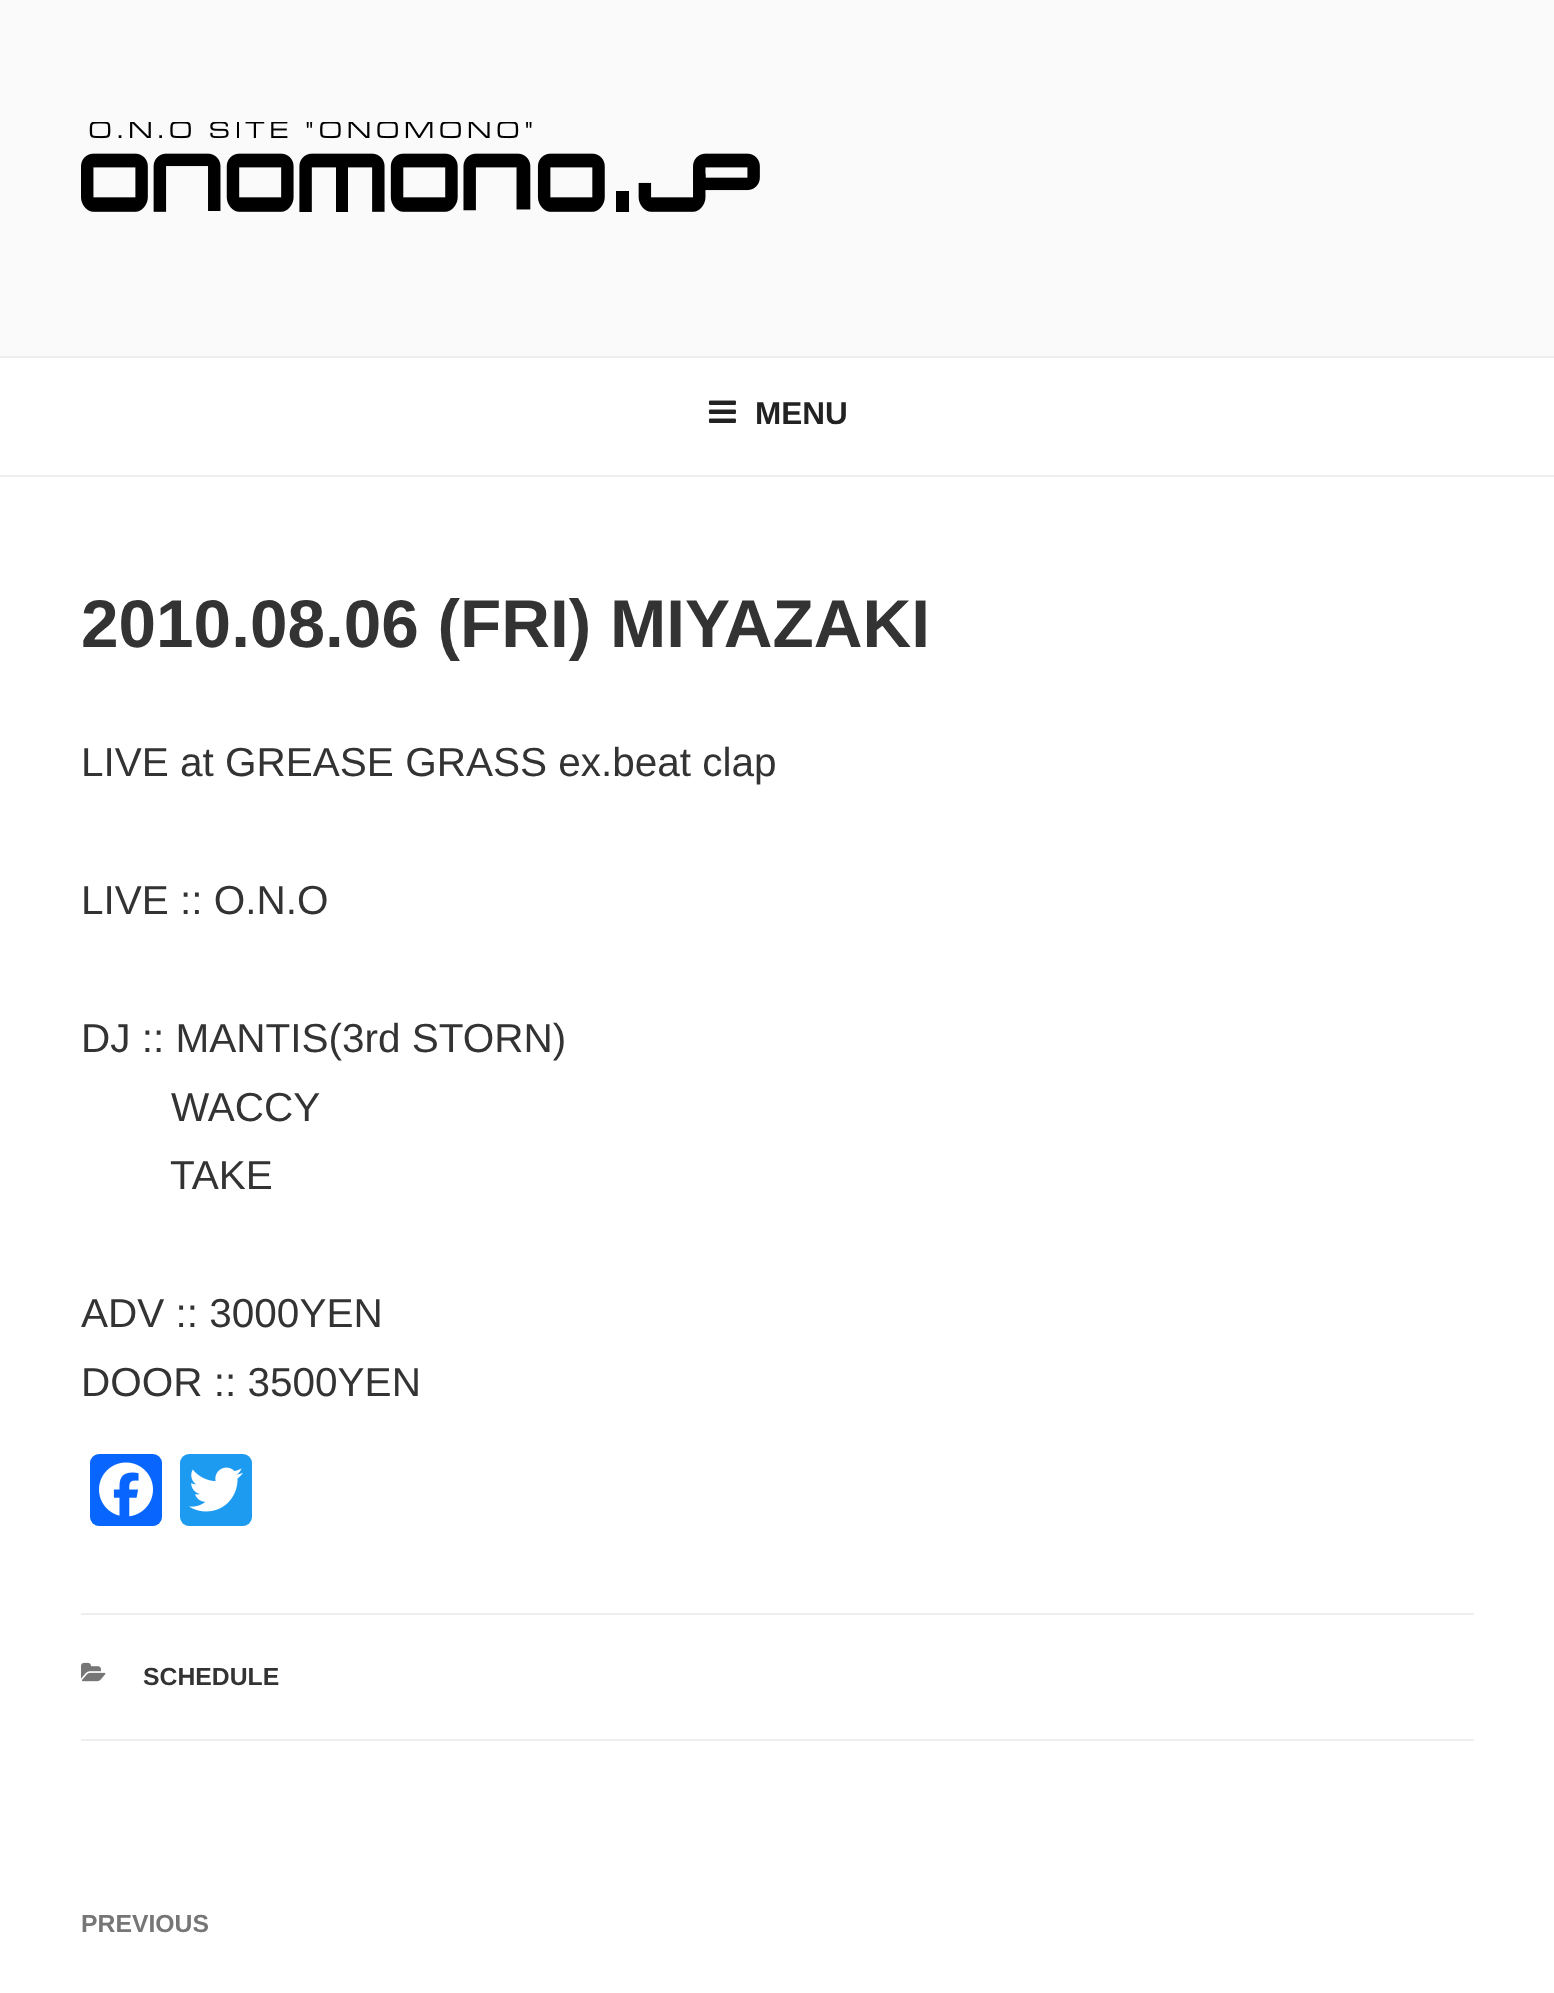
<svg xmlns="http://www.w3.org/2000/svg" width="1554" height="1993">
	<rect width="100%" height="100%" fill="#FFFFFF" />
	<rect x="0" y="0" width="1554" height="356" fill="#FAFAFA" />
	<image x="81" y="122" width="679" height="90" href="assets/img1.png" />
	<rect x="0" y="356" width="1554" height="2" fill="#EEEEEE" />
	<rect x="0" y="475" width="1554" height="2" fill="#EEEEEE" />
	<image x="708" y="400" width="28" height="23" href="assets/img2.png" />
	<text x="755" y="424" font-family="Liberation Sans" font-size="31.5" font-weight="700" fill="#222222">MENU</text>
	<text x="81" y="647" font-family="Liberation Sans" font-size="67.5" font-weight="700" fill="#333333">2010.08.06 (FRI) MIYAZAKI</text>
	<g font-family="Liberation Sans" font-size="40.5" fill="#333333">
		<text x="81" y="776">LIVE at GREASE GRASS ex.beat clap</text>
		<text x="81" y="914">LIVE :: O.N.O</text>
		<text x="81" y="1052">DJ :: MANTIS(3rd STORN)</text>
		<text x="171" y="1121">WACCY</text>
		<text x="170" y="1189">TAKE</text>
		<text x="81" y="1327">ADV :: 3000YEN</text>
		<text x="81" y="1396">DOOR :: 3500YEN</text>
	</g>
	<rect x="90" y="1454" width="72" height="72" rx="9" fill="#0866FF" />
	<image x="99" y="1462" width="54" height="55" href="assets/img3.png" />
	<rect x="180" y="1454" width="72" height="72" rx="9" fill="#1D9BF0" />
	<image x="189" y="1467" width="54" height="45" href="assets/img4.png" />
	<rect x="81" y="1613" width="1393" height="2" fill="#EEEEEE" />
	<rect x="81" y="1739" width="1393" height="2" fill="#EEEEEE" />
	<image x="81" y="1662" width="25" height="20" href="assets/img5.png" />
	<text x="143" y="1685" font-family="Liberation Sans" font-size="24.75" font-weight="700" fill="#333333">SCHEDULE</text>
	<text x="81" y="1932" font-family="Liberation Sans" font-size="24.75" font-weight="700" fill="#767676">PREVIOUS</text>
</svg>
